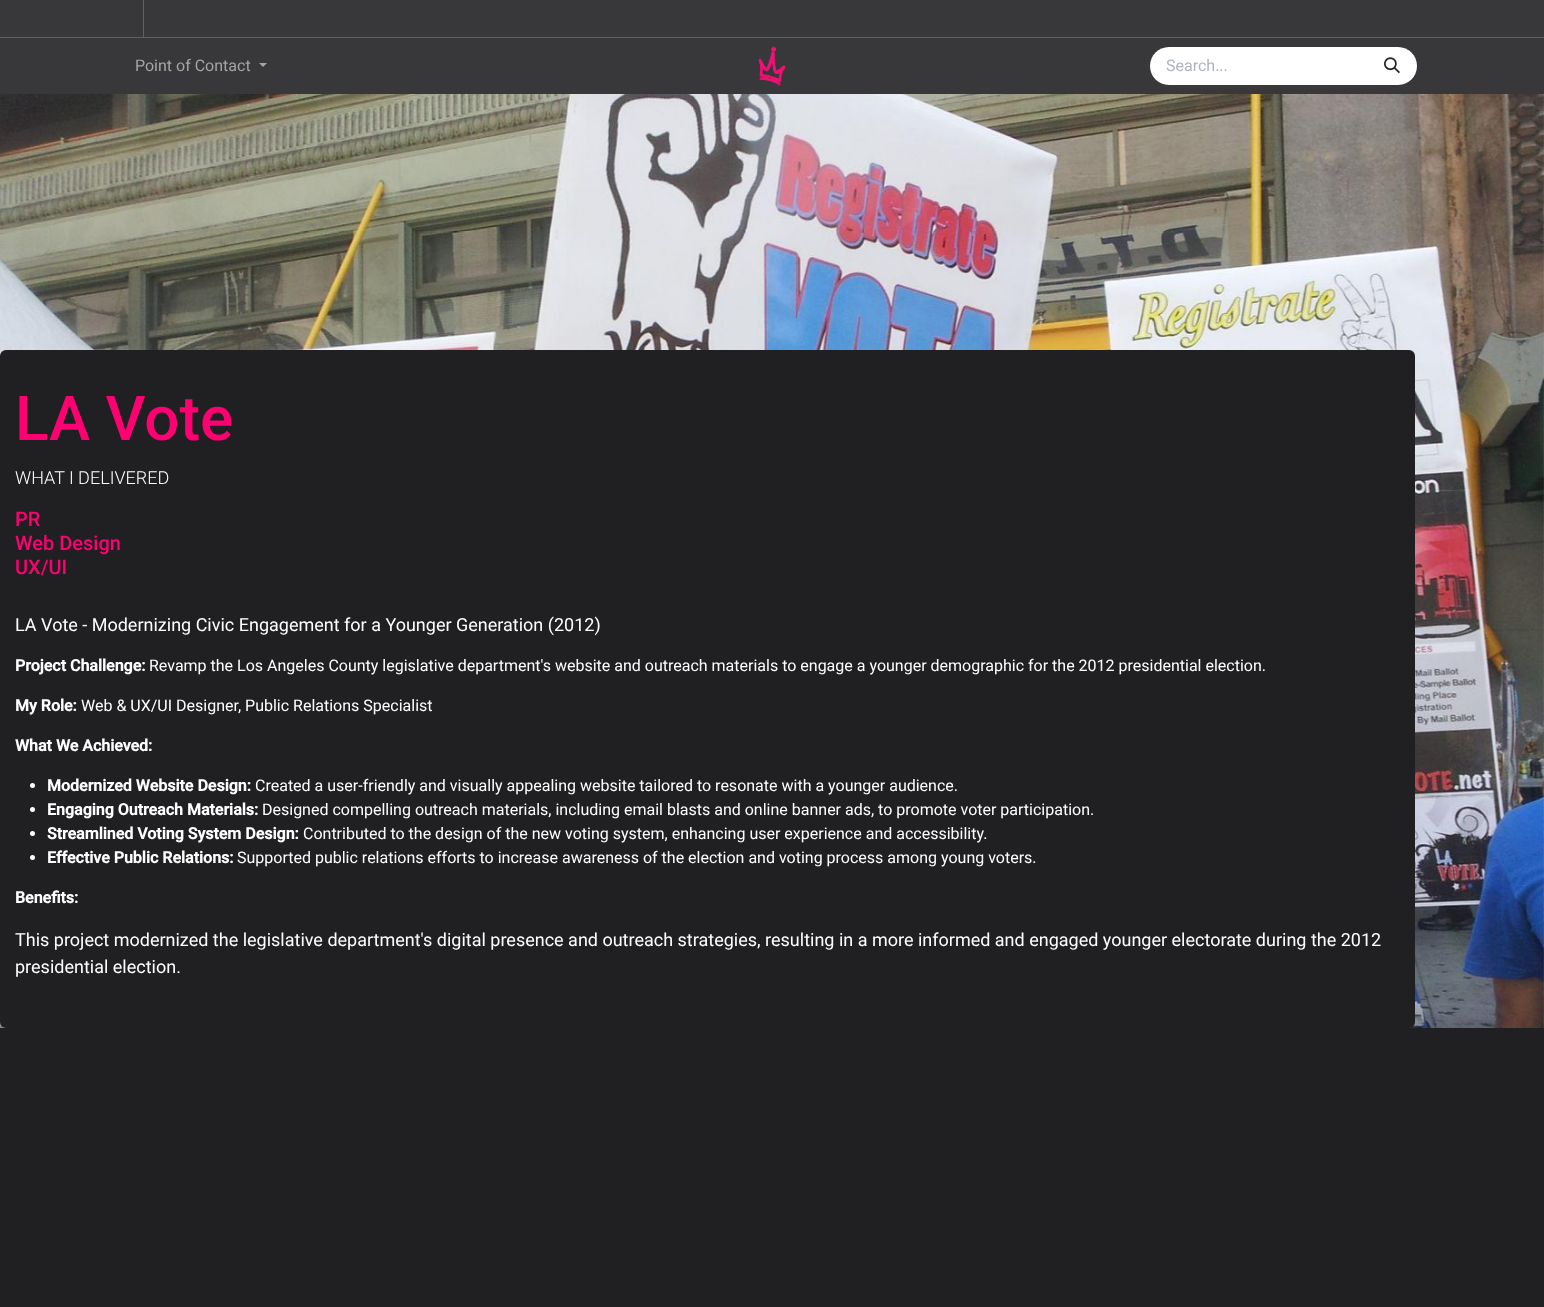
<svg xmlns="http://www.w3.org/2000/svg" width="1544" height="1307">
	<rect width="100%" height="100%" fill="#FFFFFF" />
	<rect x="0" y="0" width="1544" height="94" fill="#38383B" />
	<rect x="0" y="37" width="1544" height="1" fill="#606062" />
	<rect x="143" y="0" width="1" height="37" fill="#606062" />
	<text x="135" y="71" font-family="Roboto" font-size="16" fill="#A5A5A7">Point of Contact</text>
	<path d="M259 63H267L263 67Z" fill="#A5A5A7" />
	<image x="758" y="46" width="28" height="40" href="assets/img1.png" />
	<path d="M1169 47H1372V85H1169C1158.5 85 1150 76.5 1150 66C1150 55.5 1158.5 47 1169 47Z" fill="#FFFFFF" />
	<text x="1166" y="71" font-family="Roboto" font-size="16" fill="#ADB5BD">Search...</text>
	<path d="M1371 47H1398C1408.5 47 1417 55.5 1417 66C1417 76.5 1408.5 85 1398 85H1371Z" fill="#FFFFFF" />
	<image x="1384" y="57" width="16" height="17" href="assets/img2.png" />
	<image x="0" y="94" width="1544" height="934" href="assets/img3.png" />
	<rect x="0" y="350" width="1415" height="678" rx="6" fill="#202022" />
	<text x="15" y="440" font-family="Roboto" font-size="62" font-weight="500" fill="#FF0072">LA Vote</text>
	<text x="15" y="484" font-family="Roboto" font-size="18" font-weight="300" fill="#FFFFFF">WHAT I DELIVERED</text>
	<g font-family="Roboto" font-size="20" font-weight="500" fill="#FF0072">
		<text x="15" y="526">PR</text>
		<text x="15" y="550">Web Design</text>
		<text x="15" y="574">UX/UI</text>
	</g>
	<text x="15" y="631" font-family="Roboto" font-size="18" fill="#FFFFFF">LA Vote - Modernizing Civic Engagement for a Younger Generation (2012)</text>
	<text x="15" y="671" font-family="Roboto" font-size="16" font-weight="700" fill="#FFFFFF">Project Challenge:</text>
	<text x="149" y="671" font-family="Roboto" font-size="16" fill="#FFFFFF">Revamp the Los Angeles County legislative department's website and outreach materials to engage a younger demographic for the 2012 presidential election.</text>
	<text x="15" y="711" font-family="Roboto" font-size="16" font-weight="700" fill="#FFFFFF">My Role:</text>
	<text x="81" y="711" font-family="Roboto" font-size="16" fill="#FFFFFF">Web &amp; UX/UI Designer, Public Relations Specialist</text>
	<text x="15" y="751" font-family="Roboto" font-size="16" font-weight="700" fill="#FFFFFF">What We Achieved:</text>
	<circle cx="32.5" cy="785.5" r="2.5" fill="#FFFFFF" />
	<text x="47" y="791" font-family="Roboto" font-size="16" font-weight="700" fill="#FFFFFF">Modernized Website Design:</text>
	<text x="255" y="791" font-family="Roboto" font-size="16" fill="#FFFFFF">Created a user-friendly and visually appealing website tailored to resonate with a younger audience.</text>
	<circle cx="32.5" cy="809.5" r="2.5" fill="#FFFFFF" />
	<text x="47" y="815" font-family="Roboto" font-size="16" font-weight="700" fill="#FFFFFF">Engaging Outreach Materials:</text>
	<text x="262" y="815" font-family="Roboto" font-size="16" fill="#FFFFFF">Designed compelling outreach materials, including email blasts and online banner ads, to promote voter participation.</text>
	<circle cx="32.5" cy="833.5" r="2.5" fill="#FFFFFF" />
	<text x="47" y="839" font-family="Roboto" font-size="16" font-weight="700" fill="#FFFFFF">Streamlined Voting System Design:</text>
	<text x="303" y="839" font-family="Roboto" font-size="16" fill="#FFFFFF">Contributed to the design of the new voting system, enhancing user experience and accessibility.</text>
	<circle cx="32.5" cy="857.5" r="2.5" fill="#FFFFFF" />
	<text x="47" y="863" font-family="Roboto" font-size="16" font-weight="700" fill="#FFFFFF">Effective Public Relations:</text>
	<text x="237" y="863" font-family="Roboto" font-size="16" fill="#FFFFFF">Supported public relations efforts to increase awareness of the election and voting process among young voters.</text>
	<text x="15" y="903" font-family="Roboto" font-size="16" font-weight="700" fill="#FFFFFF">Benefits:</text>
	<g font-family="Roboto" font-size="18" fill="#FFFFFF">
		<text x="15" y="946">This project modernized the legislative department's digital presence and outreach strategies, resulting in a more informed and engaged younger electorate during the 2012</text>
		<text x="15" y="973">presidential election.</text>
	</g>
	<rect x="0" y="1028" width="1544" height="279" fill="#202022" />
</svg>
